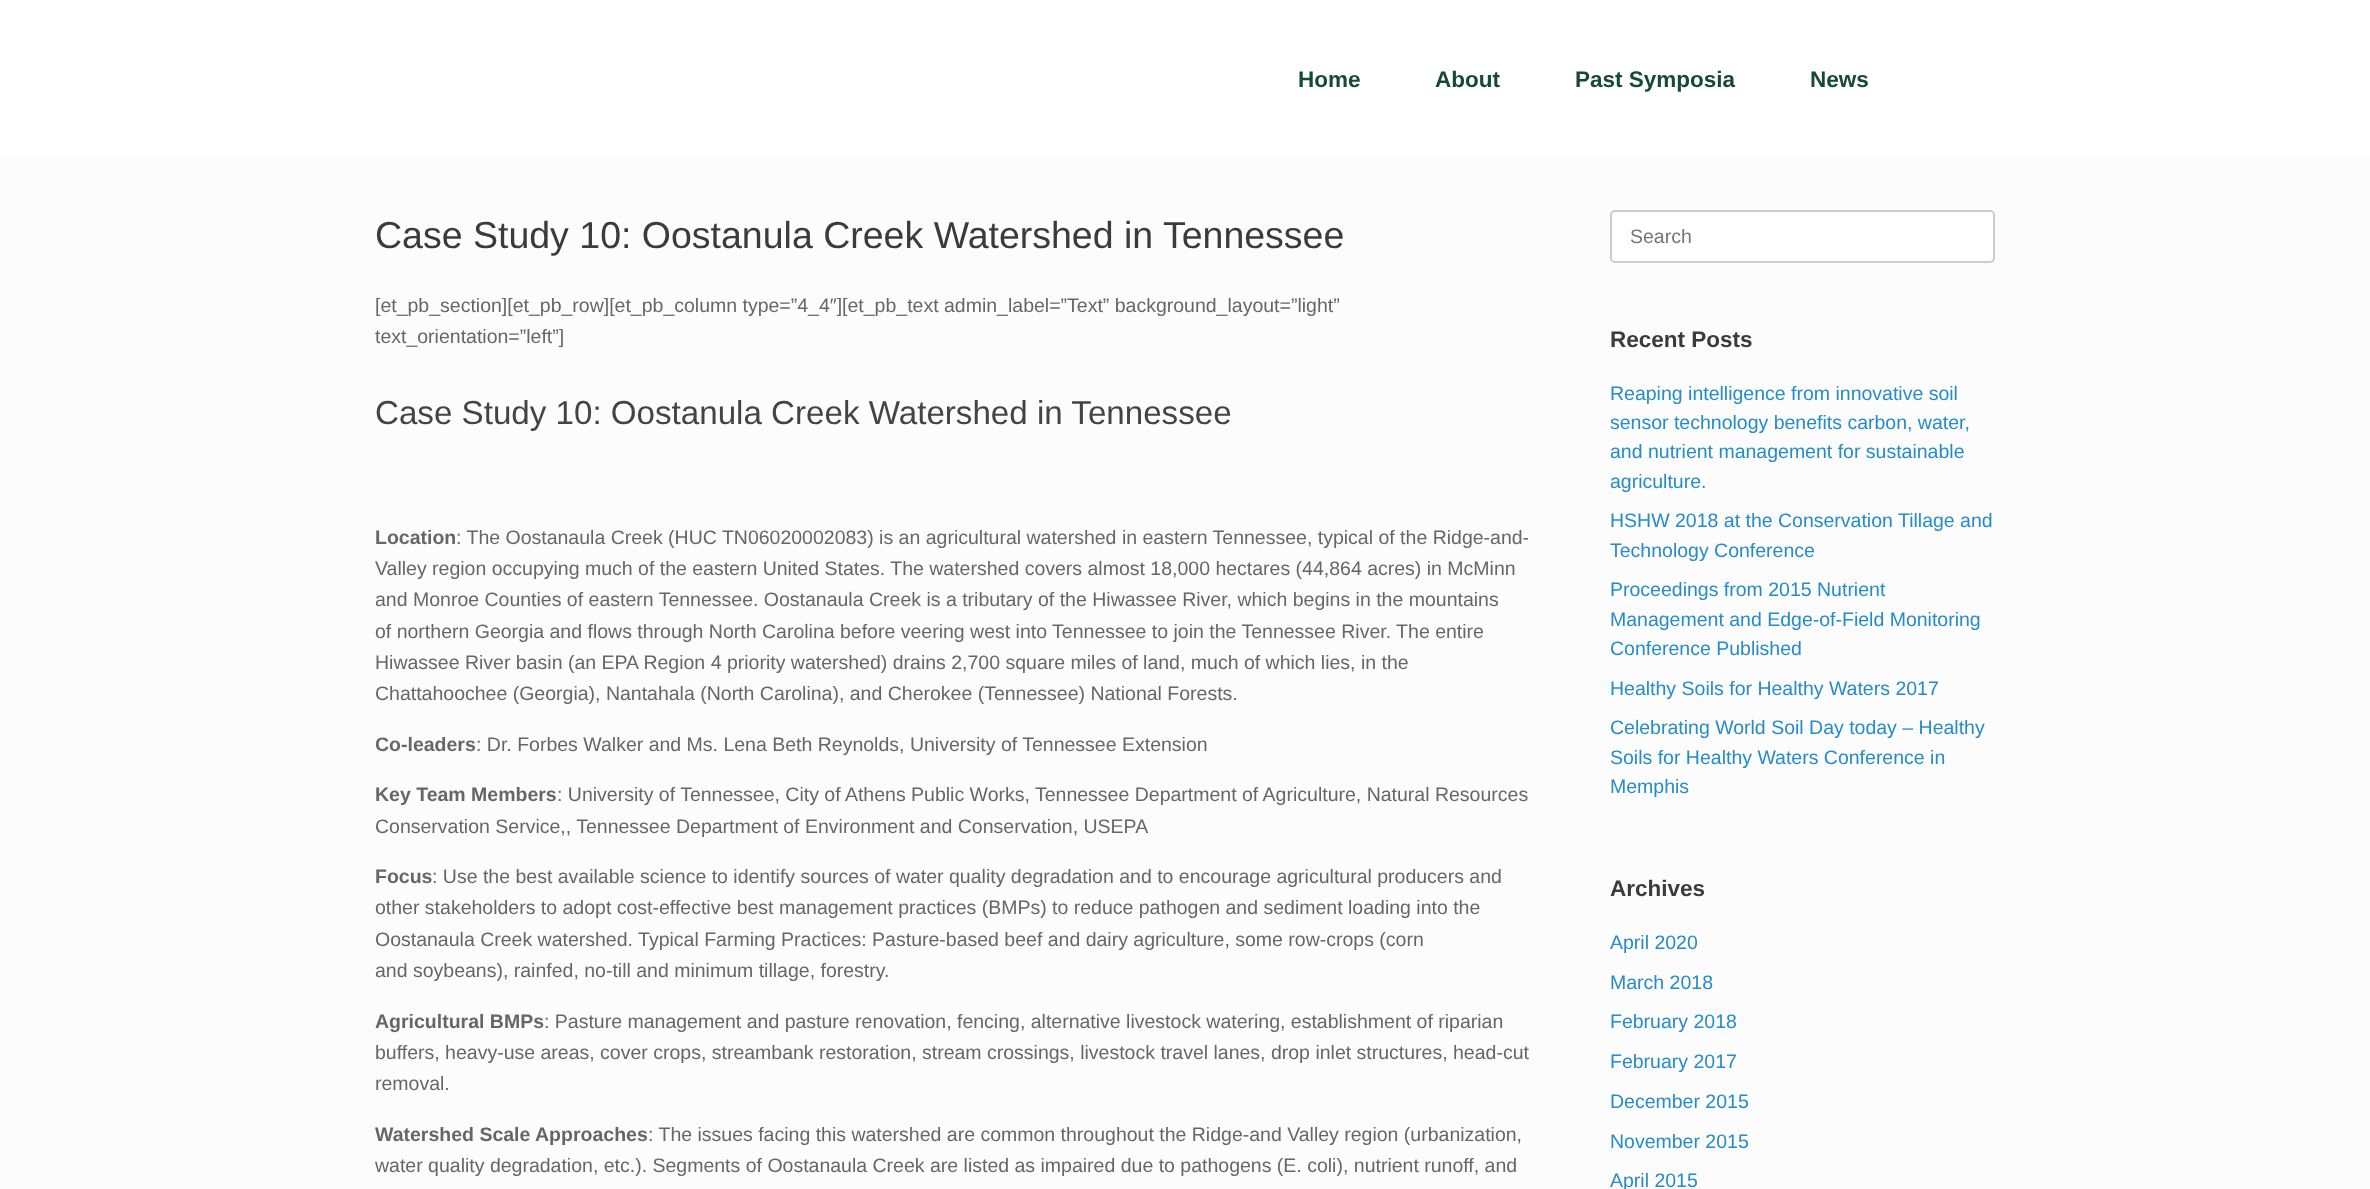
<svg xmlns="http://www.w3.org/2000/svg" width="2370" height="1189">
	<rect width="100%" height="100%" fill="#FCFCFC" />
	<rect x="0" y="0" width="2370" height="158" fill="#FFFFFF" />
	<g font-family="Liberation Sans" font-size="22.5" font-weight="700" fill="#174938">
		<text x="1298" y="87">Home</text>
		<text x="1435" y="87">About</text>
		<text x="1575" y="87">Past Symposia</text>
		<text x="1810" y="87">News</text>
	</g>
	<text x="375" y="248" font-family="Liberation Sans" font-size="37.5" fill="#3B3B3B">Case Study 10: Oostanula Creek Watershed in Tennessee</text>
	<g font-family="Liberation Sans" font-size="19.5" fill="#666666">
		<text x="375" y="312">[et_pb_section][et_pb_row][et_pb_column type=”4_4″][et_pb_text admin_label=”Text” background_layout=”light”</text>
		<text x="375" y="343">text_orientation=”left”]</text>
	</g>
	<text x="375" y="424" font-family="Liberation Sans" font-size="33.15" fill="#444444">Case Study 10: Oostanula Creek Watershed in Tennessee</text>
	<text x="375" y="544" font-family="Liberation Sans" font-size="19.5" font-weight="700" fill="#666666">Location</text>
	<g font-family="Liberation Sans" font-size="19.5" fill="#666666">
		<text x="456" y="544">: The Oostanaula Creek (HUC TN06020002083) is an agricultural watershed in eastern Tennessee, typical of the Ridge-and-</text>
		<text x="375" y="575">Valley region occupying much of the eastern United States. The watershed covers almost 18,000 hectares (44,864 acres) in McMinn</text>
		<text x="375" y="606">and Monroe Counties of eastern Tennessee. Oostanaula Creek is a tributary of the Hiwassee River, which begins in the mountains</text>
		<text x="375" y="638">of northern Georgia and flows through North Carolina before veering west into Tennessee to join the Tennessee River. The entire</text>
		<text x="375" y="669">Hiwassee River basin (an EPA Region 4 priority watershed) drains 2,700 square miles of land, much of which lies, in the</text>
		<text x="375" y="700">Chattahoochee (Georgia), Nantahala (North Carolina), and Cherokee (Tennessee) National Forests.</text>
	</g>
	<text x="375" y="751" font-family="Liberation Sans" font-size="19.5" font-weight="700" fill="#666666">Co-leaders</text>
	<text x="476" y="751" font-family="Liberation Sans" font-size="19.5" fill="#666666">: Dr. Forbes Walker and Ms. Lena Beth Reynolds, University of Tennessee Extension</text>
	<text x="375" y="801" font-family="Liberation Sans" font-size="19.5" font-weight="700" fill="#666666">Key Team Members</text>
	<g font-family="Liberation Sans" font-size="19.5" fill="#666666">
		<text x="557" y="801">: University of Tennessee, City of Athens Public Works, Tennessee Department of Agriculture, Natural Resources</text>
		<text x="375" y="833">Conservation Service,, Tennessee Department of Environment and Conservation, USEPA</text>
	</g>
	<text x="375" y="883" font-family="Liberation Sans" font-size="19.5" font-weight="700" fill="#666666">Focus</text>
	<g font-family="Liberation Sans" font-size="19.5" fill="#666666">
		<text x="432" y="883">: Use the best available science to identify sources of water quality degradation and to encourage agricultural producers and</text>
		<text x="375" y="914">other stakeholders to adopt cost-effective best management practices (BMPs) to reduce pathogen and sediment loading into the</text>
		<text x="375" y="946">Oostanaula Creek watershed. Typical Farming Practices: Pasture-based beef and dairy agriculture, some row-crops (corn</text>
		<text x="375" y="977">and soybeans), rainfed, no-till and minimum tillage, forestry.</text>
	</g>
	<text x="375" y="1028" font-family="Liberation Sans" font-size="19.5" font-weight="700" fill="#666666">Agricultural BMPs</text>
	<g font-family="Liberation Sans" font-size="19.5" fill="#666666">
		<text x="544" y="1028">: Pasture management and pasture renovation, fencing, alternative livestock watering, establishment of riparian</text>
		<text x="375" y="1059">buffers, heavy-use areas, cover crops, streambank restoration, stream crossings, livestock travel lanes, drop inlet structures, head-cut</text>
		<text x="375" y="1090">removal.</text>
	</g>
	<text x="375" y="1141" font-family="Liberation Sans" font-size="19.5" font-weight="700" fill="#666666">Watershed Scale Approaches</text>
	<g font-family="Liberation Sans" font-size="19.5" fill="#666666">
		<text x="648" y="1141">: The issues facing this watershed are common throughout the Ridge-and Valley region (urbanization,</text>
		<text x="375" y="1172">water quality degradation, etc.). Segments of Oostanaula Creek are listed as impaired due to pathogens (E. coli), nutrient runoff, and</text>
	</g>
	<rect x="1611" y="211" width="383" height="51" rx="4" fill="#FFFFFF" stroke="#CCCCCC" stroke-width="2" />
	<text x="1630" y="243" font-family="Liberation Sans" font-size="19.5" fill="#757575">Search</text>
	<text x="1610" y="347" font-family="Liberation Sans" font-size="22.5" font-weight="700" fill="#3B3B3B">Recent Posts</text>
	<g font-family="Liberation Sans" font-size="19.5" fill="#248CC8">
		<text x="1610" y="400">Reaping intelligence from innovative soil</text>
		<text x="1610" y="429">sensor technology benefits carbon, water,</text>
		<text x="1610" y="458">and nutrient management for sustainable</text>
		<text x="1610" y="488">agriculture.</text>
		<text x="1610" y="527">HSHW 2018 at the Conservation Tillage and</text>
		<text x="1610" y="557">Technology Conference</text>
		<text x="1610" y="596">Proceedings from 2015 Nutrient</text>
		<text x="1610" y="626">Management and Edge-of-Field Monitoring</text>
		<text x="1610" y="655">Conference Published</text>
		<text x="1610" y="695">Healthy Soils for Healthy Waters 2017</text>
		<text x="1610" y="734">Celebrating World Soil Day today – Healthy</text>
		<text x="1610" y="764">Soils for Healthy Waters Conference in</text>
		<text x="1610" y="793">Memphis</text>
	</g>
	<text x="1610" y="896" font-family="Liberation Sans" font-size="22.5" font-weight="700" fill="#3B3B3B">Archives</text>
	<g font-family="Liberation Sans" font-size="19.5" fill="#248CC8">
		<text x="1610" y="949">April 2020</text>
		<text x="1610" y="989">March 2018</text>
		<text x="1610" y="1028">February 2018</text>
		<text x="1610" y="1068">February 2017</text>
		<text x="1610" y="1108">December 2015</text>
		<text x="1610" y="1148">November 2015</text>
		<text x="1610" y="1187">April 2015</text>
	</g>
</svg>
